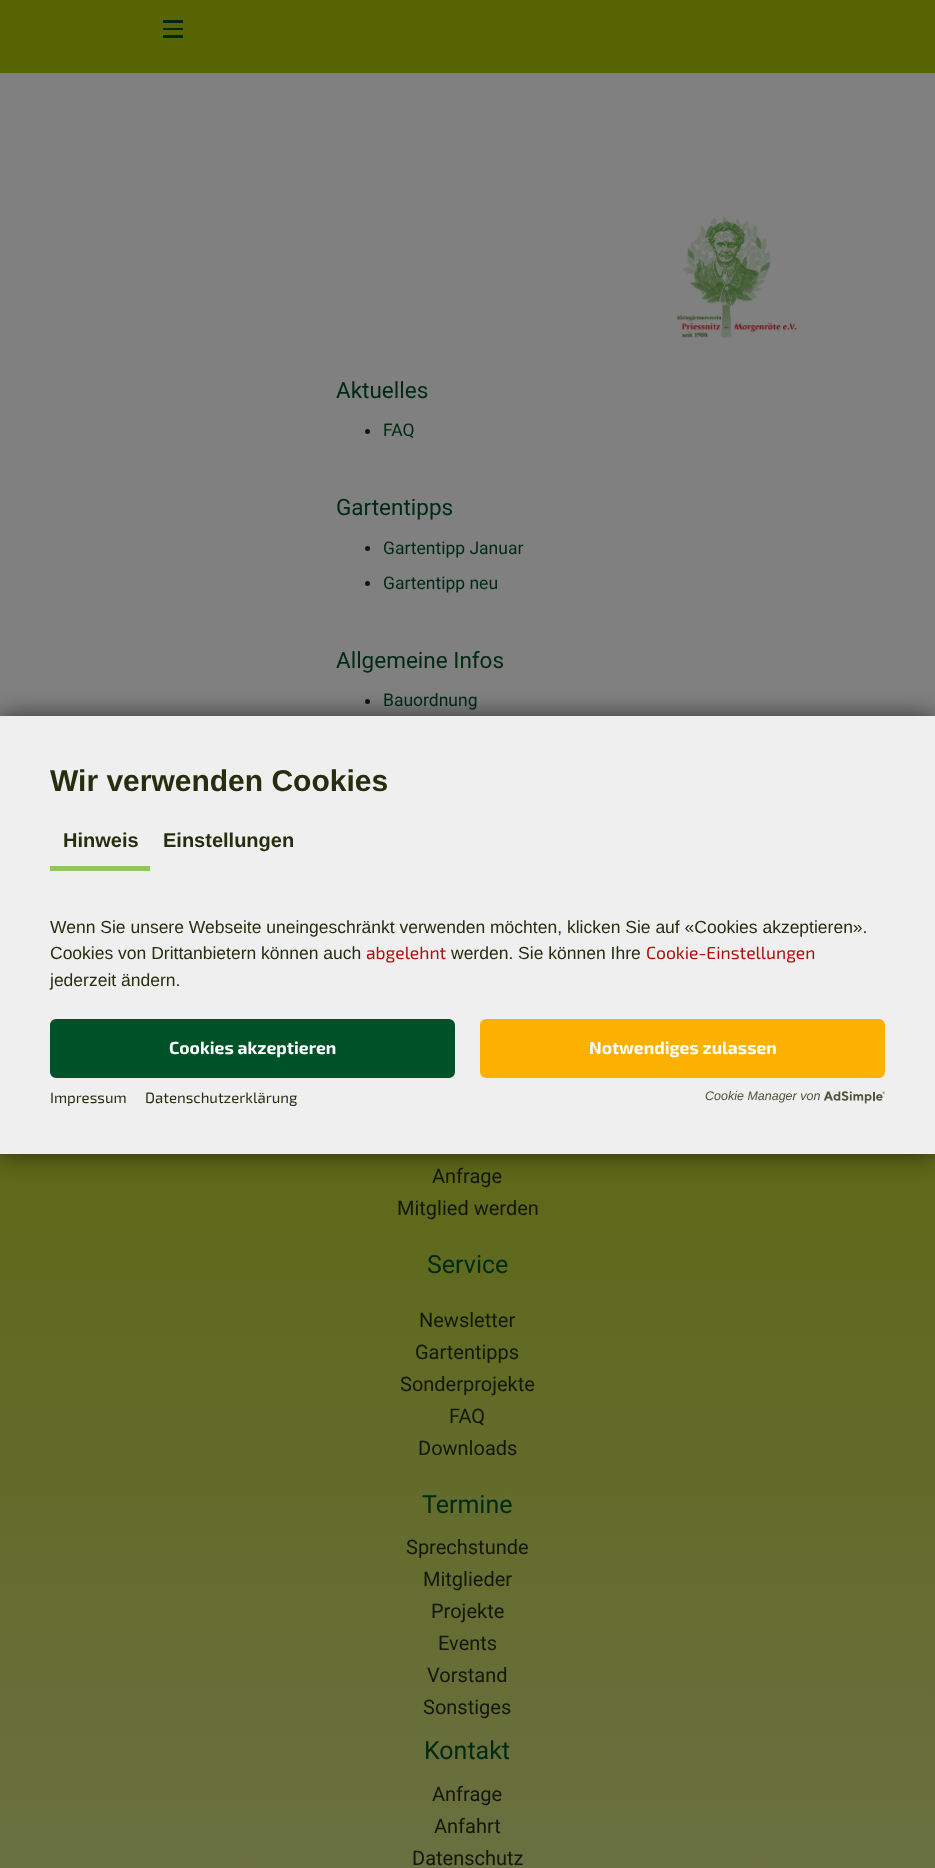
<svg xmlns="http://www.w3.org/2000/svg" width="935" height="1868">
	<defs>
		<linearGradient id="g1" gradientUnits="userSpaceOnUse" x1="467" y1="825" x2="468" y2="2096"><stop offset="0" stop-color="#586505" /><stop offset="1" stop-color="#6D724E" /></linearGradient>
	</defs>
	<rect width="100%" height="100%" fill="#808080" />
	<rect x="0" y="0" width="935" height="73" fill="#586505" />
	<rect x="163" y="20" width="20" height="3" fill="#002914" />
	<rect x="163" y="28" width="20" height="2" fill="#002914" />
	<rect x="163" y="35" width="20" height="3" fill="#002914" />
	<image x="676" y="216" width="121" height="122" href="assets/img1.png" />
	<text x="336" y="398" font-family="Roboto" font-size="22.5" fill="#002914">Aktuelles</text>
	<circle cx="367.5" cy="431.5" r="2.5" fill="#131707" />
	<text x="383" y="436" font-family="Roboto" font-size="17.5" fill="#002914">FAQ</text>
	<text x="336" y="515" font-family="Roboto" font-size="22.5" fill="#002914">Gartentipps</text>
	<circle cx="367.5" cy="548.5" r="2.5" fill="#131707" />
	<text x="383" y="554" font-family="Roboto" font-size="17.5" fill="#002914">Gartentipp Januar</text>
	<circle cx="367.5" cy="583.5" r="2.5" fill="#131707" />
	<text x="383" y="589" font-family="Roboto" font-size="17.5" fill="#002914">Gartentipp neu</text>
	<text x="336" y="668" font-family="Roboto" font-size="22.5" fill="#002914">Allgemeine Infos</text>
	<circle cx="367.5" cy="701.5" r="2.5" fill="#131707" />
	<text x="383" y="706" font-family="Roboto" font-size="17.5" fill="#002914">Bauordnung</text>
	<rect x="0" y="1154" width="935" height="714" fill="url(#g1)" />
	<g font-family="Roboto" font-size="20" fill="#131707">
		<text x="432" y="1183">Anfrage</text>
		<text x="397" y="1215">Mitglied werden</text>
	</g>
	<text x="427" y="1273" font-family="Roboto" font-size="25" fill="#002914">Service</text>
	<g font-family="Roboto" font-size="20" fill="#131707">
		<text x="419" y="1327">Newsletter</text>
		<text x="415" y="1359">Gartentipps</text>
		<text x="400" y="1391">Sonderprojekte</text>
		<text x="449" y="1423">FAQ</text>
		<text x="418" y="1455">Downloads</text>
	</g>
	<text x="422" y="1513" font-family="Roboto" font-size="25" fill="#002914">Termine</text>
	<g font-family="Roboto" font-size="20" fill="#131707">
		<text x="406" y="1554">Sprechstunde</text>
		<text x="423" y="1586">Mitglieder</text>
		<text x="431" y="1618">Projekte</text>
		<text x="438" y="1650">Events</text>
		<text x="427" y="1682">Vorstand</text>
		<text x="423" y="1714">Sonstiges</text>
	</g>
	<text x="424" y="1759" font-family="Roboto" font-size="25" fill="#002914">Kontakt</text>
	<g font-family="Roboto" font-size="20" fill="#131707">
		<text x="432" y="1801">Anfrage</text>
		<text x="434" y="1833">Anfahrt</text>
		<text x="412" y="1865">Datenschutz</text>
	</g>
	<rect x="0" y="716" width="935" height="438" fill="#000000" fill-opacity="0.6" filter="blur(12.5px)" />
	<rect x="0" y="716" width="935" height="438" fill="#EFEFEF" />
	<text x="50" y="791" font-family="Liberation Sans" font-size="30" font-weight="700" fill="#252E0E">Wir verwenden Cookies</text>
	<rect x="50" y="866" width="100" height="5" fill="#8EC760" />
	<g font-family="Liberation Sans" font-size="20" font-weight="700" fill="#252E0E">
		<text x="63" y="847">Hinweis</text>
		<text x="163" y="847">Einstellungen</text>
	</g>
	<g font-family="Liberation Sans" font-size="17.5" fill="#252E0E">
		<text x="50" y="933">Wenn Sie unsere Webseite uneingeschränkt verwenden möchten, klicken Sie auf «Cookies akzeptieren».</text>
		<text x="50" y="959">Cookies von Drittanbietern können auch</text>
	</g>
	<text x="366" y="959" font-family="'Exo 2'" font-size="17.5" fill="#AE0F09">abgelehnt</text>
	<text x="451" y="959" font-family="Liberation Sans" font-size="17.5" fill="#252E0E">werden. Sie können Ihre</text>
	<text x="646" y="959" font-family="'Exo 2'" font-size="17.5" fill="#AE0F09">Cookie-Einstellungen</text>
	<text x="50" y="986" font-family="Liberation Sans" font-size="17.5" fill="#252E0E">jederzeit ändern.</text>
	<rect x="51.5" y="1020.5" width="402" height="56" rx="4.5" fill="#005228" stroke="#005228" stroke-width="3" />
	<text x="169" y="1054" font-family="'Exo 2'" font-size="17.5" font-weight="700" fill="#FFFFFF">Cookies akzeptieren</text>
	<rect x="481.5" y="1020.5" width="402" height="56" rx="4.5" fill="#FCB100" stroke="#FCB100" stroke-width="3" />
	<text x="589" y="1054" font-family="'Exo 2'" font-size="17.5" font-weight="700" fill="#FFFFFF">Notwendiges zulassen</text>
	<g font-family="'Exo 2'" font-size="15" fill="#252E0E">
		<text x="50" y="1103">Impressum</text>
		<text x="145" y="1103">Datenschutzerklärung</text>
	</g>
	<text x="705" y="1100" font-family="Liberation Sans" font-size="12.5" font-style="italic" fill="#4D553B">Cookie Manager von</text>
	<image x="824" y="1091" width="61" height="13" href="assets/img2.png" />
</svg>
